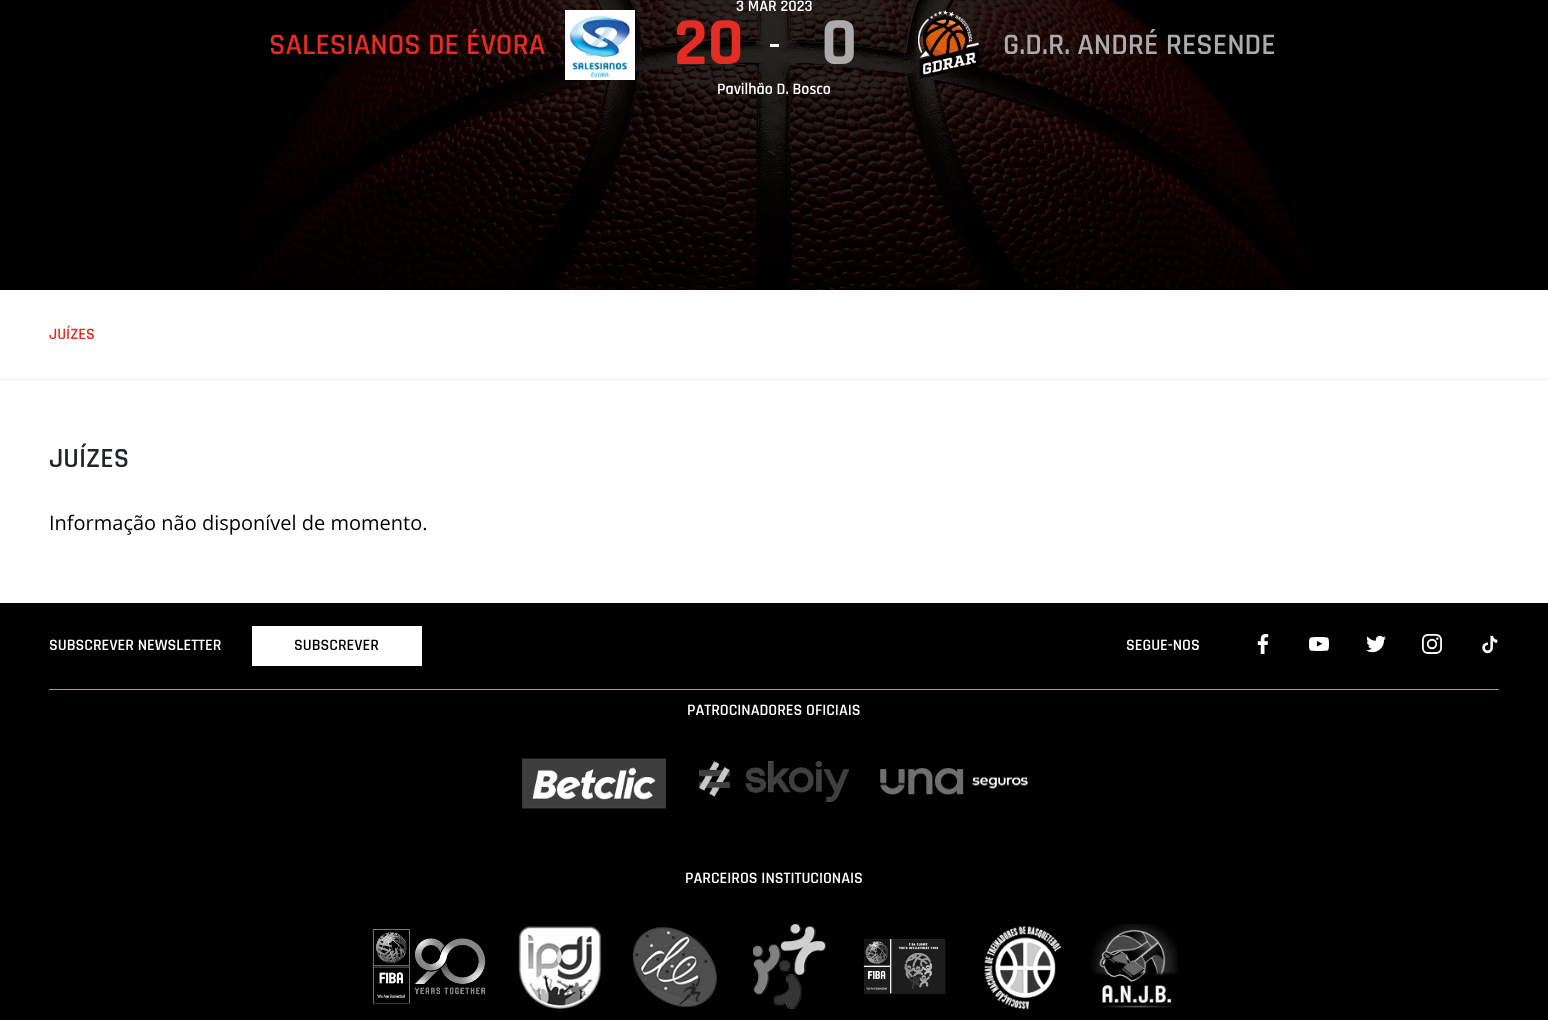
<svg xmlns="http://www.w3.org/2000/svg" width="1548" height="1020">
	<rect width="100%" height="100%" fill="#FFFFFF" />
	<image x="0" y="0" width="1548" height="290" href="assets/img1.png" />
	<text x="736" y="11" font-family="Rajdhani" font-size="16" font-weight="600" fill="#FFFFFF">3 MAR 2023</text>
	<text x="269" y="54" font-family="Rajdhani" font-size="30" font-weight="600" fill="#E32C23">SALESIANOS DE ÉVORA</text>
	<image x="565" y="10" width="70" height="70" href="assets/img2.png" />
	<text x="674" y="64" font-family="Rajdhani" font-size="68" font-weight="700" fill="#E32C23">20</text>
	<rect x="770" y="44" width="9" height="3" fill="#FFFFFF" />
	<text x="821" y="64" font-family="Rajdhani" font-size="68" font-weight="700" fill="#ACABAB">0</text>
	<image x="917" y="10" width="62" height="69" href="assets/img3.png" />
	<text x="1003" y="54" font-family="Rajdhani" font-size="30" font-weight="600" fill="#ACABAB">G.D.R. ANDRÉ RESENDE</text>
	<text x="717" y="94" font-family="Rajdhani" font-size="16" font-weight="600" fill="#FFFFFF">Pavilhão D. Bosco</text>
	<rect x="0" y="379" width="1548" height="1" fill="#EEEEEE" />
	<text x="49" y="339" font-family="Rajdhani" font-size="16" font-weight="600" fill="#E32C23">JUÍZES</text>
	<text x="49" y="467" font-family="Rajdhani" font-size="28" font-weight="600" fill="#212529">JUÍZES</text>
	<text x="49" y="530" font-family="Open Sans" font-size="20" fill="#000000">Informação não disponível de momento.</text>
	<rect x="0" y="603" width="1548" height="417" fill="#000000" />
	<rect x="49" y="689" width="1450" height="1" fill="#A89B71" />
	<text x="49" y="650" font-family="Rajdhani" font-size="16" font-weight="600" fill="#FFFFFF">SUBSCREVER NEWSLETTER</text>
	<rect x="252" y="626" width="170" height="40" fill="#FFFFFF" />
	<text x="294" y="650" font-family="Rajdhani" font-size="16" font-weight="600" fill="#000000">SUBSCREVER</text>
	<text x="1126" y="650" font-family="Rajdhani" font-size="16" font-weight="600" fill="#FFFFFF">SEGUE-NOS</text>
	<image x="1257" y="634" width="12" height="20" href="assets/img4.png" />
	<image x="1309" y="637" width="20" height="14" href="assets/img5.png" />
	<image x="1366" y="635" width="20" height="18" href="assets/img6.png" />
	<image x="1422" y="634" width="20" height="20" href="assets/img7.png" />
	<image x="1482" y="635" width="16" height="19" href="assets/img8.png" />
	<text x="687" y="715" font-family="Rajdhani" font-size="16" font-weight="600" fill="#FFFFFF">PATROCINADORES OFICIAIS</text>
	<image x="522" y="758" width="144" height="51" href="assets/img9.png" />
	<image x="699" y="761" width="150" height="41" href="assets/img10.png" />
	<image x="880" y="768" width="148" height="27" href="assets/img11.png" />
	<text x="685" y="883" font-family="Rajdhani" font-size="16" font-weight="600" fill="#FFFFFF">PARCEIROS INSTITUCIONAIS</text>
	<image x="372" y="929" width="114" height="75" href="assets/img12.png" />
	<image x="518" y="926" width="84" height="83" href="assets/img13.png" />
	<image x="632" y="927" width="85" height="80" href="assets/img14.png" />
	<image x="753" y="924" width="73" height="85" href="assets/img15.png" />
	<image x="863" y="939" width="83" height="55" href="assets/img16.png" />
	<image x="984" y="926" width="78" height="83" href="assets/img17.png" />
	<image x="1092" y="924" width="85" height="84" href="assets/img18.png" />
</svg>
